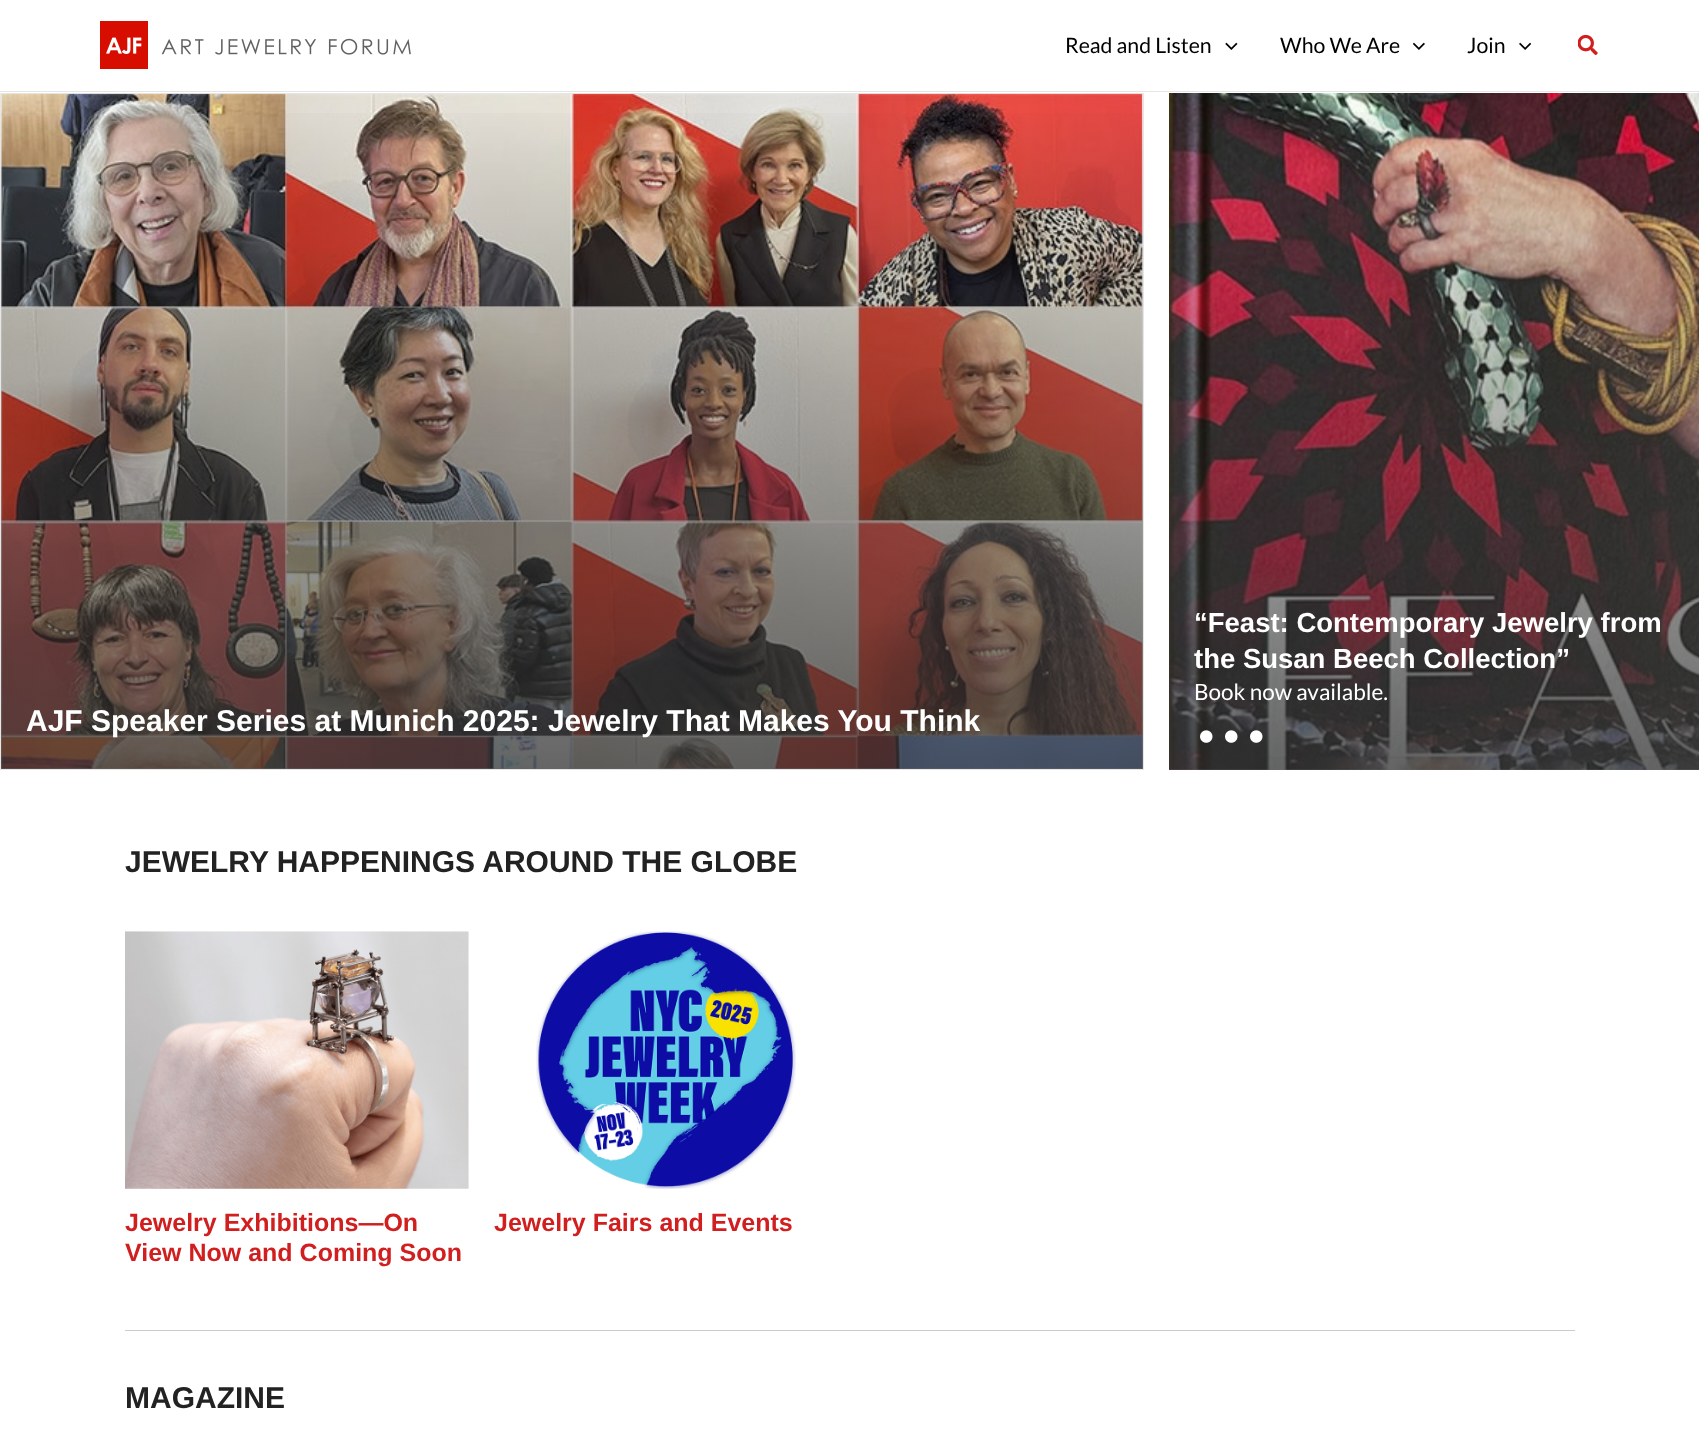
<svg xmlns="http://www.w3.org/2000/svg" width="1699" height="1435">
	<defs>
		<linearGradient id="g1" gradientUnits="userSpaceOnUse" x1="1435" y1="93" x2="1435" y2="770"><stop offset="0" stop-color="#323232" stop-opacity="0" /><stop offset="1" stop-color="#323232" stop-opacity="0.75" /></linearGradient>
		<linearGradient id="g2" gradientUnits="userSpaceOnUse" x1="572" y1="94" x2="572" y2="769"><stop offset="0" stop-color="#323232" stop-opacity="0" /><stop offset="1" stop-color="#323232" stop-opacity="0.75" /></linearGradient>
	</defs>
	<rect width="100%" height="100%" fill="#FFFFFF" />
	<rect x="0" y="91" width="1699" height="1" fill="#E5E5E5" />
	<image x="100" y="21" width="311" height="48" href="assets/img1.png" />
	<text x="1065" y="53" font-family="Lato" font-size="21.25" fill="#000000">Read and Listen</text>
	<image x="1225" y="42" width="13" height="8" href="assets/img2.png" />
	<text x="1280" y="53" font-family="Lato" font-size="21.25" fill="#000000">Who We Are</text>
	<image x="1413" y="42" width="12" height="8" href="assets/img3.png" />
	<text x="1467" y="53" font-family="Lato" font-size="21.25" fill="#000000">Join</text>
	<image x="1519" y="42" width="12" height="8" href="assets/img4.png" />
	<image x="1578" y="34" width="20" height="22" href="assets/img5.png" />
	<image x="1169" y="93" width="530" height="677" href="assets/img6.png" />
	<rect x="1169" y="112" width="530" height="658" fill="url(#g1)" />
	<g font-family="Liberation Sans" font-size="27.5" font-weight="700" fill="#FFFFFF">
		<text x="1194" y="632">“Feast: Contemporary Jewelry from</text>
		<text x="1194" y="668">the Susan Beech Collection”</text>
	</g>
	<text x="1194" y="700" font-family="Lato" font-size="22.5" fill="#FFFFFF">Book now available.</text>
	<image x="1200" y="730" width="13" height="13" href="assets/img7.png" />
	<image x="1225" y="730" width="13" height="13" href="assets/img8.png" />
	<image x="1250" y="730" width="13" height="13" href="assets/img9.png" />
	<rect x="0.5" y="93.5" width="1143" height="676" fill="none" stroke="#E6E6E6" />
	<image x="1" y="93" width="1142" height="676" href="assets/img10.png" />
	<rect x="1" y="113" width="1142" height="656" fill="url(#g2)" />
	<text x="26" y="731" font-family="Liberation Sans" font-size="30" font-weight="700" fill="#FFFFFF">AJF Speaker Series at Munich 2025: Jewelry That Makes You Think</text>
	<text x="125" y="872" font-family="Liberation Sans" font-size="30" font-weight="700" fill="#222222">JEWELRY HAPPENINGS AROUND THE GLOBE</text>
	<image x="125" y="931" width="344" height="258" href="assets/img11.png" />
	<g font-family="Liberation Sans" font-size="25" font-weight="700" fill="#D01F1E">
		<text x="125" y="1231">Jewelry Exhibitions—On</text>
		<text x="125" y="1261">View Now and Coming Soon</text>
	</g>
	<image x="536" y="931" width="260" height="258" href="assets/img12.png" />
	<text x="494" y="1231" font-family="Liberation Sans" font-size="25" font-weight="700" fill="#D01F1E">Jewelry Fairs and Events</text>
	<rect x="125" y="1330" width="1450" height="1" fill="#CCCCCC" />
	<text x="125" y="1408" font-family="Liberation Sans" font-size="30" font-weight="700" fill="#222222">MAGAZINE</text>
</svg>
